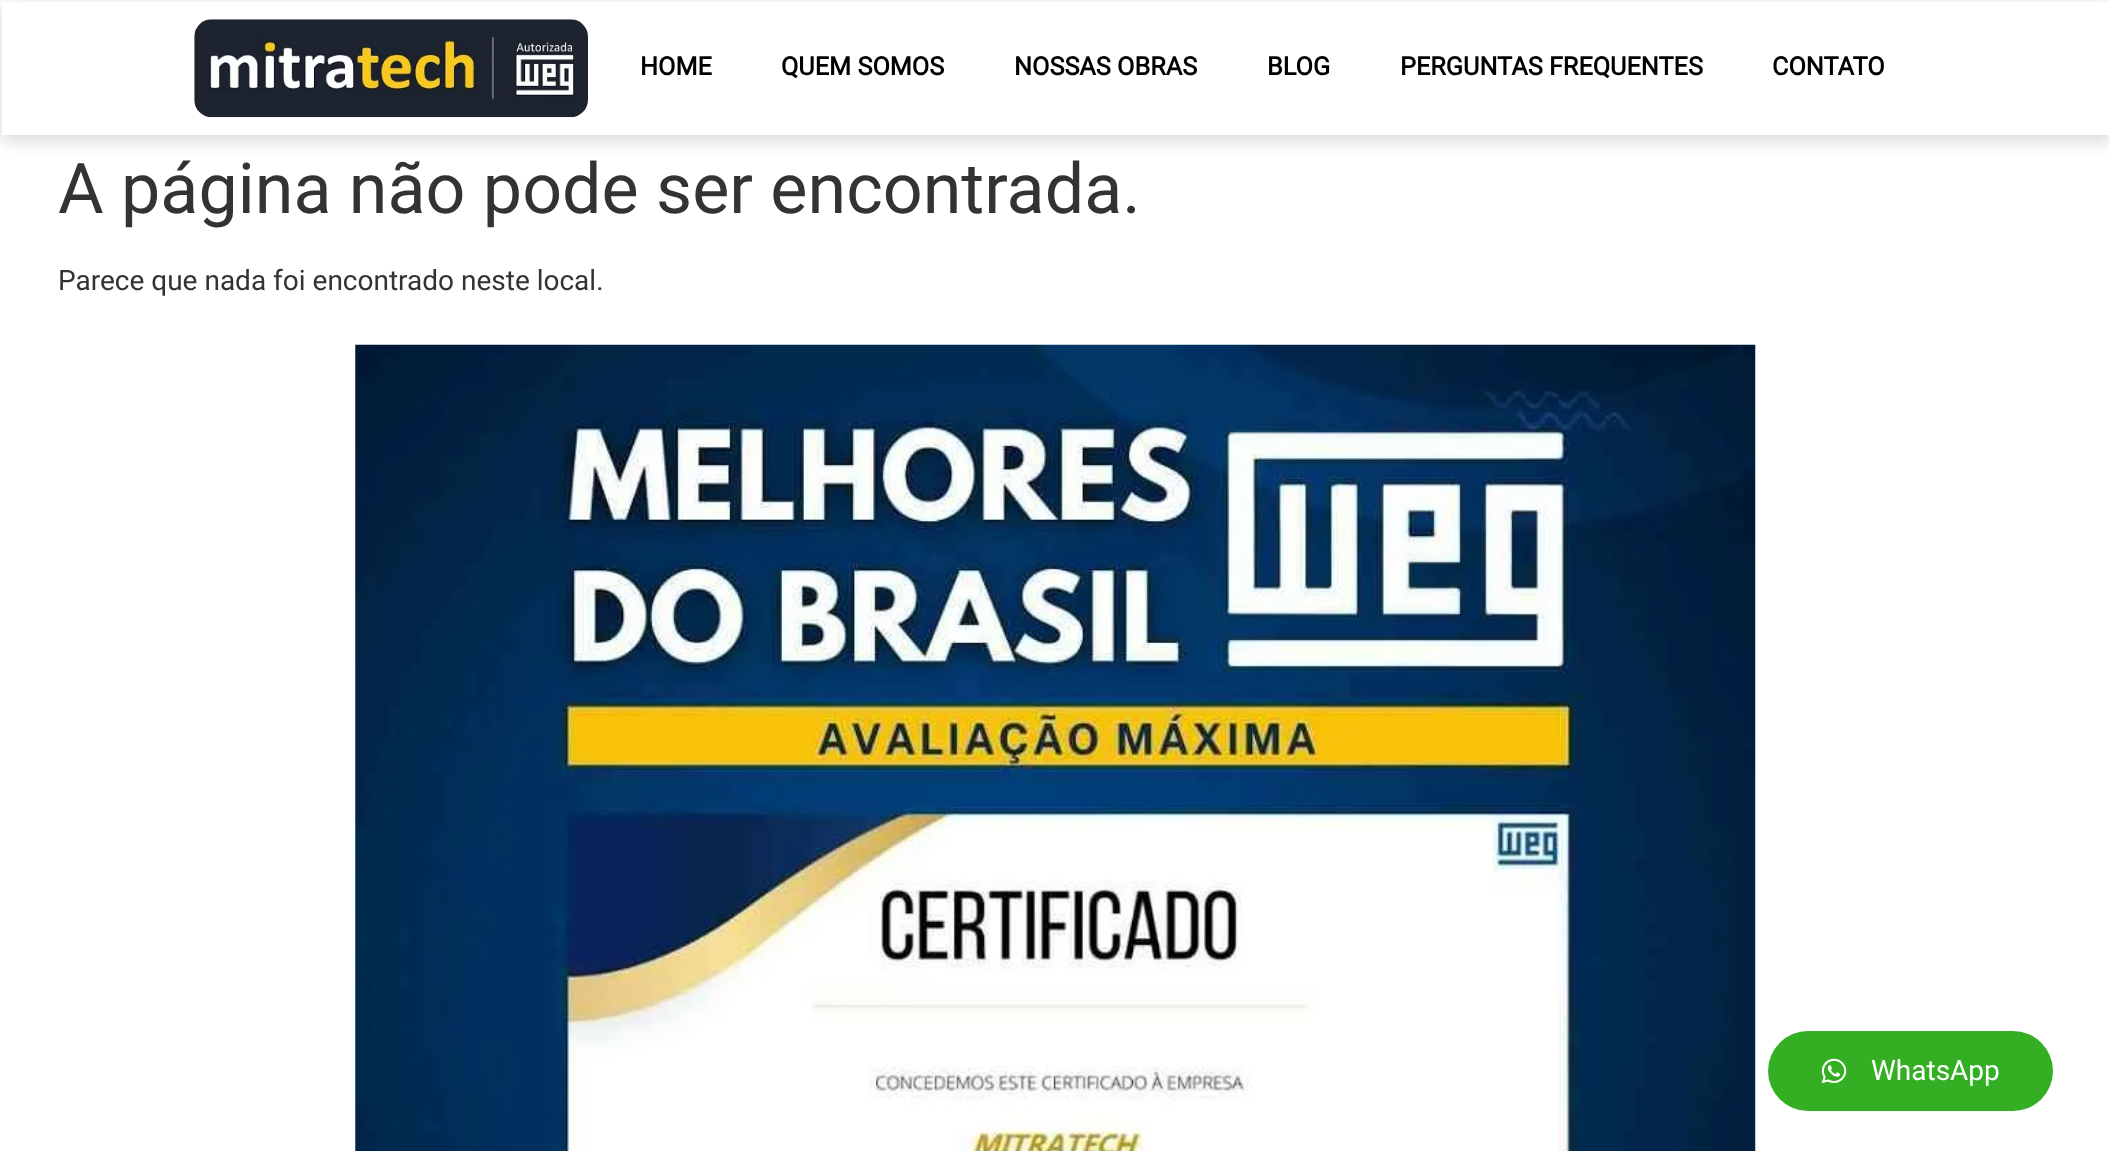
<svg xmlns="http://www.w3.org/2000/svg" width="2109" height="1151">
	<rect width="100%" height="100%" fill="#FFFFFF" />
	<rect x="2" y="7" width="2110" height="133" fill="#AAAAAA" fill-opacity="0.5" filter="blur(9px)" />
	<rect x="2" y="2" width="2107" height="133" fill="#FFFFFF" />
	<image x="194" y="19" width="394" height="99" href="assets/img1.png" />
	<g font-family="Roboto" font-size="25.25" font-weight="700" fill="#000000">
		<text x="640" y="75">HOME</text>
		<text x="781" y="75">QUEM SOMOS</text>
		<text x="1014" y="75">NOSSAS OBRAS</text>
		<text x="1267" y="75">BLOG</text>
		<text x="1400" y="75">PERGUNTAS FREQUENTES</text>
		<text x="1772" y="75">CONTATO</text>
	</g>
	<text x="58" y="213" font-family="Roboto" font-size="70" fill="#333333">A página não pode ser encontrada.</text>
	<text x="58" y="290" font-family="Roboto" font-size="28" fill="#333333">Parece que nada foi encontrado neste local.</text>
	<image x="355" y="344" width="1401" height="807" href="assets/img2.png" />
	<rect x="1768" y="1031" width="285" height="80" rx="40" fill="#34AF23" />
	<image x="1821" y="1058" width="26" height="26" href="assets/img3.png" />
	<text x="1871" y="1080" font-family="Roboto" font-size="28" fill="#FFFFFF">WhatsApp</text>
</svg>
